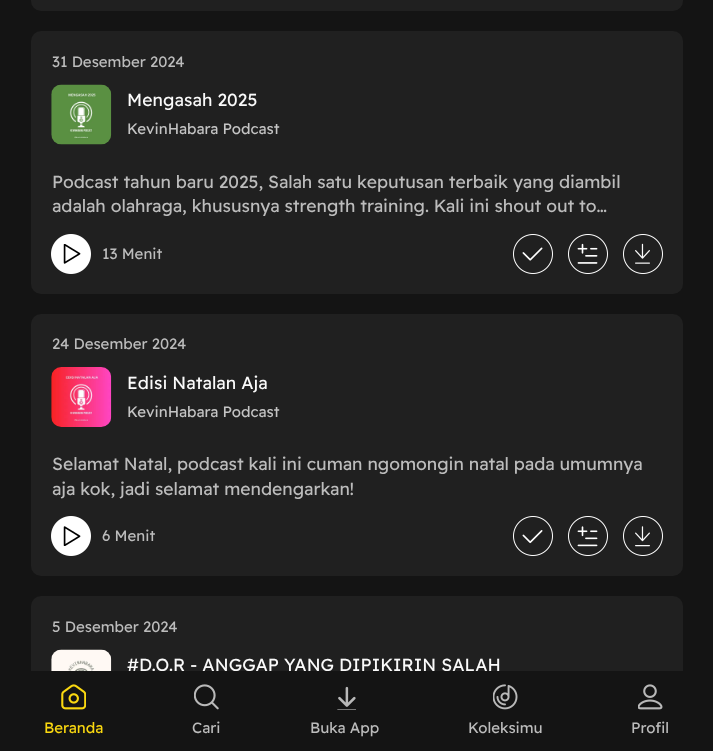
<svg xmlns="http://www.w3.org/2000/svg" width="713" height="751">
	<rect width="100%" height="100%" fill="#141414" />
	<rect x="31" y="-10" width="652" height="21" rx="10" fill="#202020" />
	<rect x="31" y="31" width="652" height="263" rx="10" fill="#202020" />
	<text x="52" y="67" font-family="Readex Pro" font-size="15" fill="#BCBCBC">31 Desember 2024</text>
	<image x="51" y="84" width="61" height="61" href="assets/img1.png" />
	<text x="127" y="106" font-family="Readex Pro" font-size="17.5" letter-spacing="0.1" fill="#FAFAFA">Mengasah 2025</text>
	<text x="127" y="134" font-family="Readex Pro" font-size="15" fill="#C4C4C4">KevinHabara Podcast</text>
	<g font-family="Readex Pro" font-size="17.5" fill="#BCBCBC">
		<text x="52" y="188">Podcast tahun baru 2025, Salah satu keputusan terbaik yang diambil</text>
		<text x="52" y="212">adalah olahraga, khususnya strength training. Kali ini shout out to…</text>
	</g>
	<image x="51" y="234" width="40" height="40" href="assets/img2.png" />
	<text x="102" y="259" font-family="Readex Pro" font-size="15" fill="#BCBCBC">13 Menit</text>
	<image x="513" y="234" width="40" height="40" href="assets/img3.png" />
	<image x="568" y="234" width="40" height="40" href="assets/img4.png" />
	<image x="623" y="234" width="40" height="40" href="assets/img5.png" />
	<rect x="31" y="314" width="652" height="262" rx="10" fill="#202020" />
	<text x="52" y="349" font-family="Readex Pro" font-size="15" fill="#BCBCBC">24 Desember 2024</text>
	<image x="51" y="367" width="61" height="60" href="assets/img6.png" />
	<text x="127" y="389" font-family="Readex Pro" font-size="17.5" letter-spacing="0.1" fill="#FAFAFA">Edisi Natalan Aja</text>
	<text x="127" y="417" font-family="Readex Pro" font-size="15" fill="#C4C4C4">KevinHabara Podcast</text>
	<g font-family="Readex Pro" font-size="17.5" fill="#BCBCBC">
		<text x="52" y="470">Selamat Natal, podcast kali ini cuman ngomongin natal pada umumnya</text>
		<text x="52" y="495">aja kok, jadi selamat mendengarkan!</text>
	</g>
	<image x="51" y="516" width="40" height="40" href="assets/img7.png" />
	<text x="102" y="541" font-family="Readex Pro" font-size="15" fill="#BCBCBC">6 Menit</text>
	<image x="513" y="516" width="40" height="40" href="assets/img8.png" />
	<image x="568" y="516" width="40" height="40" href="assets/img9.png" />
	<image x="623" y="516" width="40" height="40" href="assets/img10.png" />
	<rect x="31" y="596" width="652" height="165" rx="10" fill="#202020" />
	<text x="52" y="632" font-family="Readex Pro" font-size="15" fill="#BCBCBC">5 Desember 2024</text>
	<image x="51" y="649" width="61" height="22" href="assets/img11.png" />
	<text x="127" y="671" font-family="Readex Pro" font-size="17.5" letter-spacing="0.1" fill="#FAFAFA">#D.O.R - ANGGAP YANG DIPIKIRIN SALAH</text>
	<rect x="31" y="671" width="652" height="80" fill="#141414" />
	<image x="61" y="684" width="25" height="26" href="assets/img12.png" />
	<text x="44" y="733" font-family="Readex Pro" font-size="15" fill="#FAD810">Beranda</text>
	<image x="194" y="684" width="25" height="26" href="assets/img13.png" />
	<text x="192" y="733" font-family="Readex Pro" font-size="15" fill="#BCBCBC">Cari</text>
	<image x="337" y="686" width="19" height="24" href="assets/img14.png" />
	<text x="310" y="733" font-family="Readex Pro" font-size="15" fill="#BCBCBC">Buka App</text>
	<image x="493" y="684" width="25" height="26" href="assets/img15.png" />
	<text x="468" y="733" font-family="Readex Pro" font-size="15" fill="#BCBCBC">Koleksimu</text>
	<image x="638" y="684" width="25" height="26" href="assets/img16.png" />
	<text x="631" y="733" font-family="Readex Pro" font-size="15" fill="#BCBCBC">Profil</text>
</svg>
